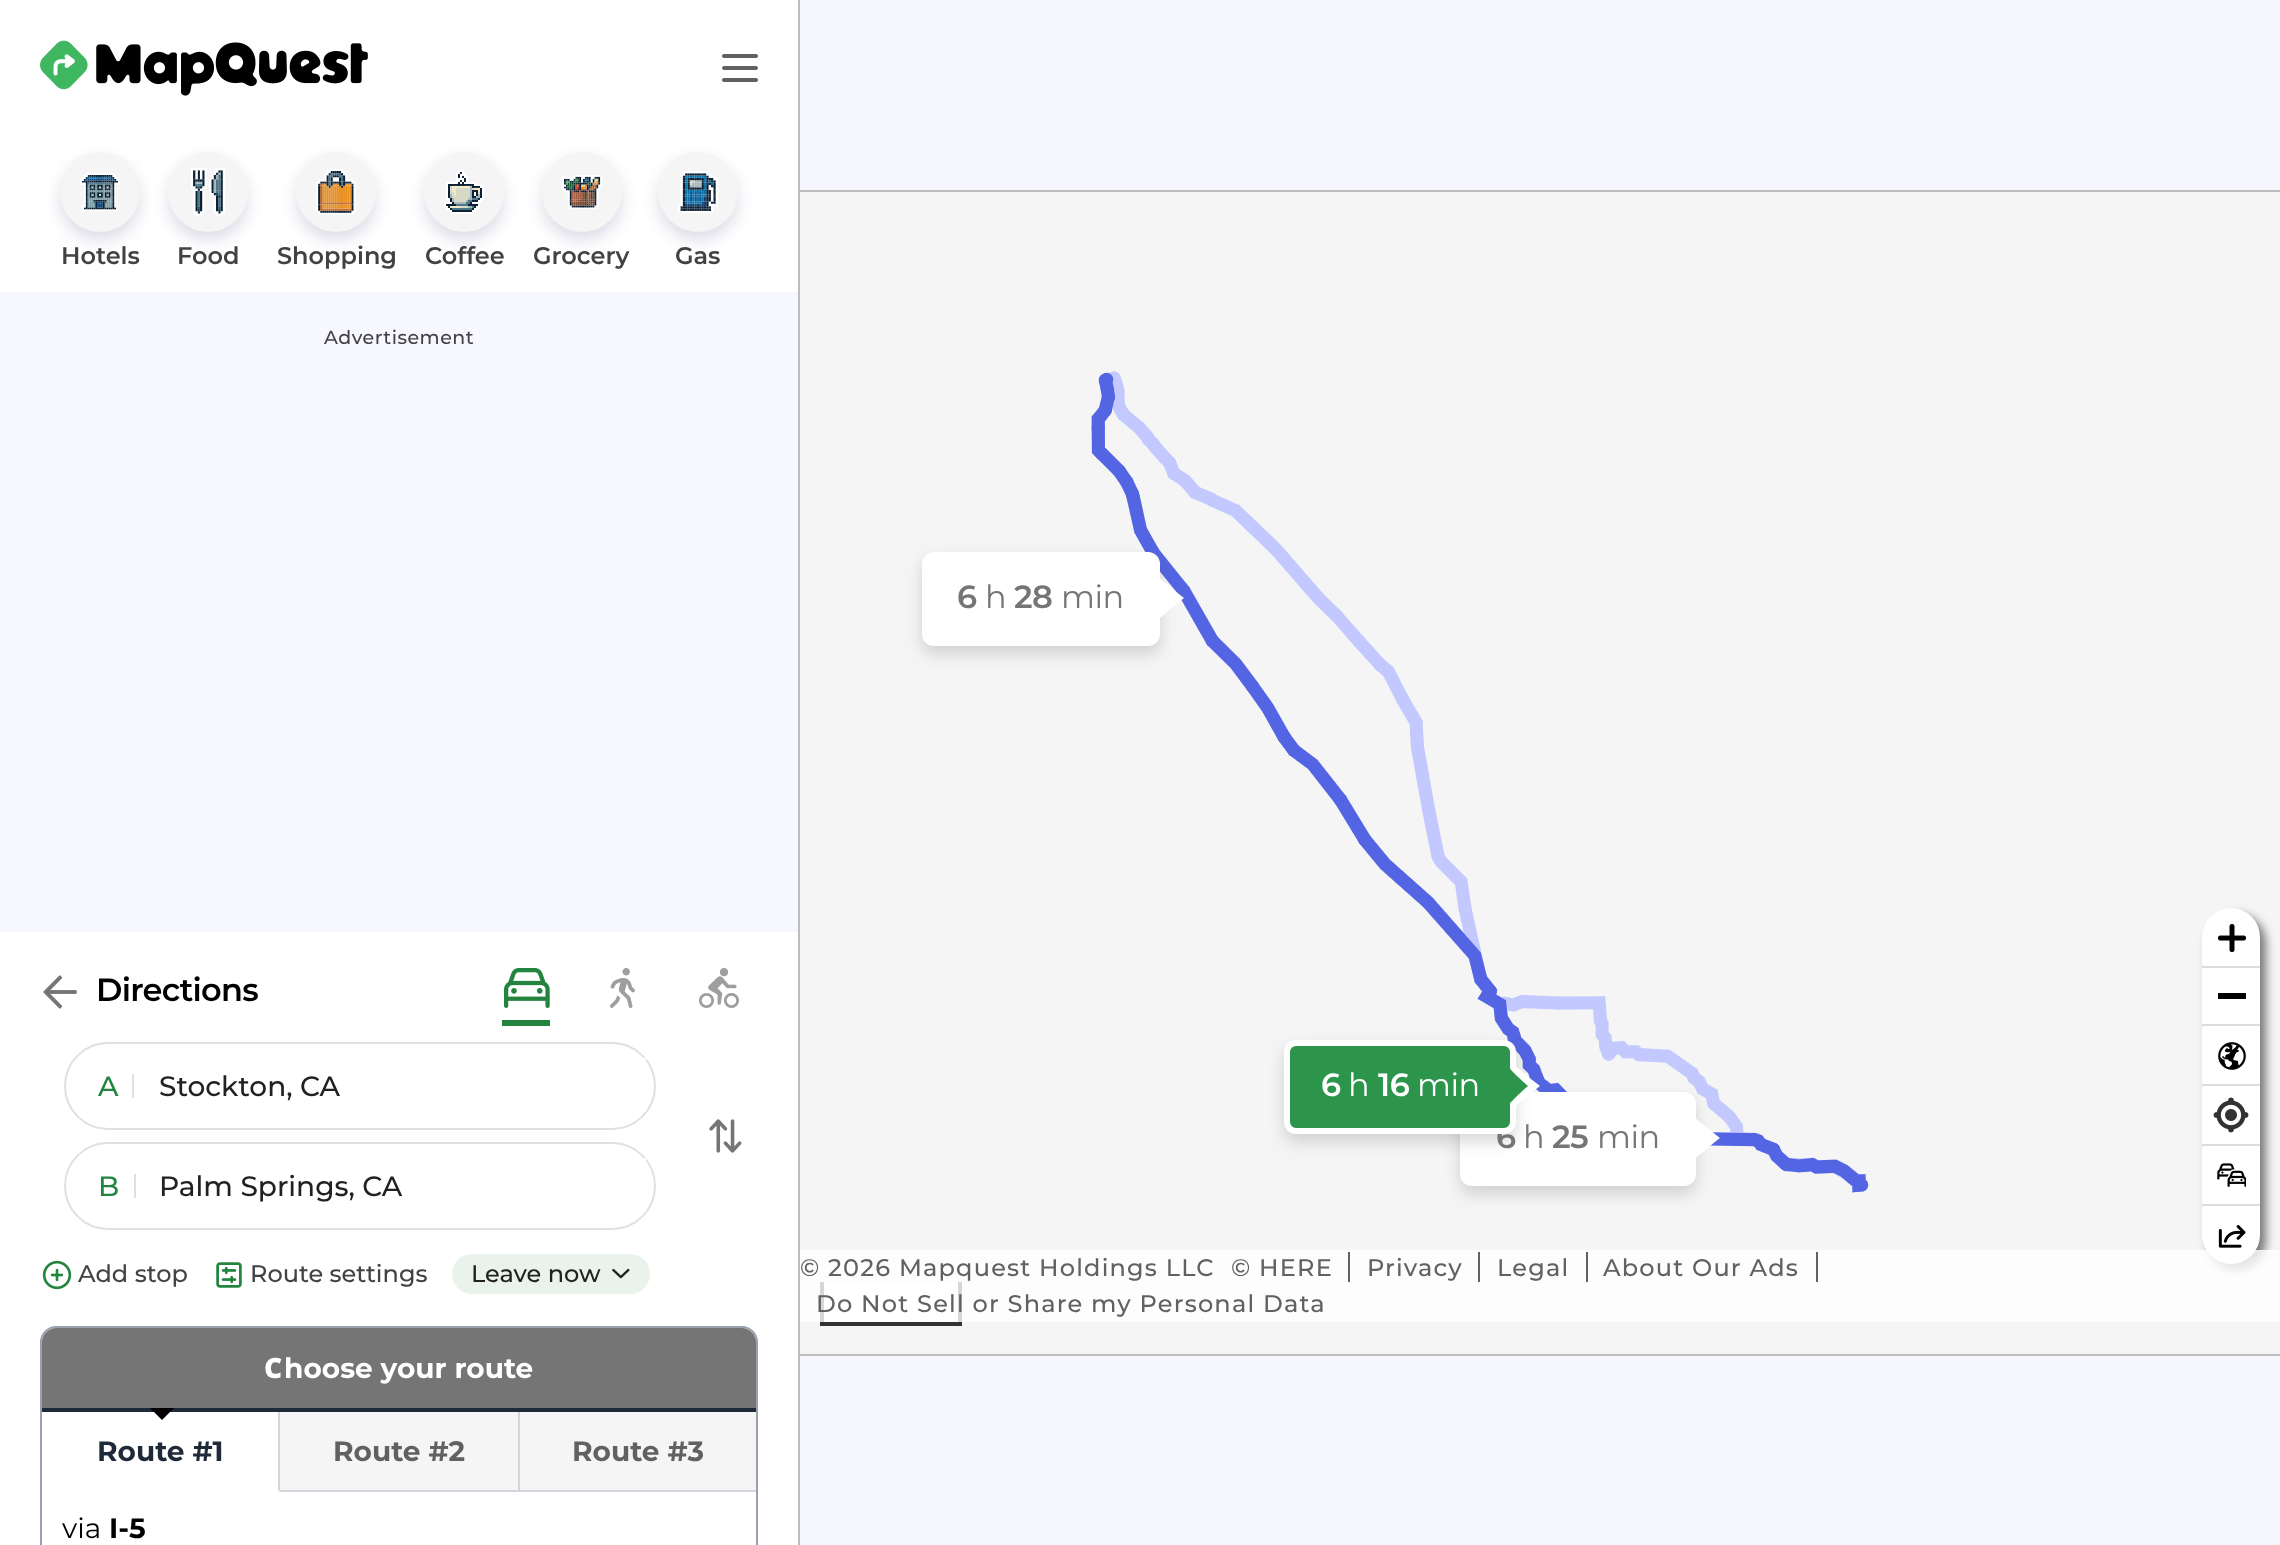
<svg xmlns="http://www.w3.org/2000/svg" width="2280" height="1545">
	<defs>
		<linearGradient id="g1" gradientUnits="userSpaceOnUse" x1="646" y1="1086" x2="550" y2="1086"><stop offset="0" stop-color="#FFFFFF" /><stop offset="0.6" stop-color="#FFFFFF" stop-opacity="0.7" /><stop offset="1" stop-color="#FFFFFF" stop-opacity="0" /></linearGradient>
		<linearGradient id="g2" gradientUnits="userSpaceOnUse" x1="646" y1="1186" x2="550" y2="1186"><stop offset="0" stop-color="#FFFFFF" /><stop offset="0.6" stop-color="#FFFFFF" stop-opacity="0.7" /><stop offset="1" stop-color="#FFFFFF" stop-opacity="0" /></linearGradient>
	</defs>
	<rect width="100%" height="100%" fill="#FFFFFF" />
	<rect x="800" y="0" width="1480" height="190" fill="#F6F6FF" />
	<rect x="800" y="190" width="1480" height="2" fill="#BDBDBD" />
	<rect x="798" y="0" width="2" height="1545" fill="#BDBDBD" />
	<image x="40" y="40" width="328" height="56" href="assets/img1.png" />
	<image x="722" y="54" width="36" height="28" href="assets/img2.png" />
	<rect x="60" y="160" width="80" height="80" rx="40" fill="#0D1660" fill-opacity="0.15" filter="blur(8px)" />
	<circle cx="100" cy="192" r="40" fill="#F5F5F5" />
	<image x="80" y="173" width="40" height="38" href="assets/img3.png" />
	<text x="61" y="264" font-family="Montserrat" font-size="24" font-weight="600" fill="#424242">Hotels</text>
	<rect x="168" y="160" width="80" height="80" rx="40" fill="#0D1660" fill-opacity="0.15" filter="blur(8px)" />
	<circle cx="208" cy="192" r="40" fill="#F5F5F5" />
	<image x="191" y="168" width="34" height="48" href="assets/img4.png" />
	<text x="177" y="264" font-family="Montserrat" font-size="24" font-weight="600" fill="#424242">Food</text>
	<rect x="296" y="160" width="80" height="80" rx="40" fill="#0D1660" fill-opacity="0.15" filter="blur(8px)" />
	<circle cx="336" cy="192" r="40" fill="#F5F5F5" />
	<image x="316" y="169" width="40" height="46" href="assets/img5.png" />
	<text x="277" y="264" font-family="Montserrat" font-size="24" font-weight="600" fill="#424242">Shopping</text>
	<rect x="424" y="160" width="80" height="80" rx="40" fill="#0D1660" fill-opacity="0.15" filter="blur(8px)" />
	<circle cx="464" cy="192" r="40" fill="#F5F5F5" />
	<image x="444" y="170" width="40" height="44" href="assets/img6.png" />
	<text x="425" y="264" font-family="Montserrat" font-size="24" font-weight="600" fill="#424242">Coffee</text>
	<rect x="542" y="160" width="80" height="80" rx="40" fill="#0D1660" fill-opacity="0.15" filter="blur(8px)" />
	<circle cx="582" cy="192" r="40" fill="#F5F5F5" />
	<image x="562" y="175" width="40" height="34" href="assets/img7.png" />
	<text x="533" y="264" font-family="Montserrat" font-size="24" font-weight="600" fill="#424242">Grocery</text>
	<rect x="658" y="160" width="80" height="80" rx="40" fill="#0D1660" fill-opacity="0.15" filter="blur(8px)" />
	<circle cx="698" cy="192" r="40" fill="#F5F5F5" />
	<image x="678" y="171" width="40" height="42" href="assets/img8.png" />
	<text x="675" y="264" font-family="Montserrat" font-size="24" font-weight="600" fill="#424242">Gas</text>
	<rect x="0" y="292" width="798" height="640" fill="#F7F7FF" />
	<text x="324" y="344" font-family="Montserrat" font-size="19" font-weight="500" letter-spacing="0.5" fill="#424242">Advertisement</text>
	<image x="43" y="975" width="34" height="34" href="assets/img9.png" />
	<text x="96" y="1001" font-family="Montserrat" font-size="32" font-weight="600" letter-spacing="-0.75" fill="#000000">Directions</text>
	<rect x="502" y="1020" width="48" height="6" fill="#238440" />
	<image x="504" y="968" width="46" height="40" href="assets/img10.png" />
	<image x="610" y="968" width="25" height="40" href="assets/img11.png" />
	<image x="699" y="968" width="40" height="40" href="assets/img12.png" />
	<rect x="65" y="1043" width="590" height="86" rx="43" fill="none" stroke="#E0E0E0" stroke-width="2" />
	<text x="98" y="1096" font-family="Montserrat" font-size="28" font-weight="500" fill="#238440">A</text>
	<rect x="132" y="1074" width="2" height="24" fill="#E0E0E0" />
	<text x="159" y="1096" font-family="Montserrat" font-size="28" font-weight="500" fill="#212121">Stockton, CA</text>
	<rect x="643" y="1058" width="3" height="54" fill="url(#g1)" />
	<image x="709" y="1119" width="33" height="34" href="assets/img13.png" />
	<rect x="65" y="1143" width="590" height="86" rx="43" fill="none" stroke="#E0E0E0" stroke-width="2" />
	<text x="98" y="1196" font-family="Montserrat" font-size="28" font-weight="500" fill="#238440">B</text>
	<rect x="134" y="1174" width="2" height="24" fill="#E0E0E0" />
	<text x="159" y="1196" font-family="Montserrat" font-size="28" font-weight="500" fill="#212121">Palm Springs, CA</text>
	<rect x="643" y="1158" width="3" height="54" fill="url(#g2)" />
	<image x="42" y="1260" width="30" height="30" href="assets/img14.png" />
	<text x="78" y="1282" font-family="Montserrat" font-size="24" font-weight="500" fill="#424242">Add stop</text>
	<image x="216" y="1262" width="26" height="26" href="assets/img15.png" />
	<text x="250" y="1282" font-family="Montserrat" font-size="24" font-weight="500" fill="#424242">Route settings</text>
	<rect x="452" y="1254" width="198" height="40" rx="20" fill="#E9F3EC" />
	<text x="471" y="1282" font-family="Montserrat" font-size="24" font-weight="500" fill="#212121">Leave now</text>
	<image x="612" y="1268" width="18" height="11" href="assets/img16.png" />
	<rect x="41" y="1327" width="716" height="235" rx="15" fill="none" stroke="#99A1AF" stroke-width="2" />
	<path d="M56 1328H742C749.5 1328 756 1334.5 756 1342V1408H42V1342C42 1334.5 48.5 1328 56 1328Z" fill="#757575" />
	<text x="264" y="1378" font-family="Noto Sans" font-size="28" font-weight="900" fill="#FFFFFF">C</text>
	<text x="284" y="1378" font-family="Montserrat" font-size="28" font-weight="700" fill="#FFFFFF">hoose your route</text>
	<rect x="42" y="1408" width="714" height="4" fill="#1E2939" />
	<path d="M150 1408H174L162 1420Z" fill="#000000" />
	<path d="M280 1412V1492L278 1490V1412Z" fill="#D1D5DC" />
	<text x="97" y="1461" font-family="Montserrat" font-size="28" font-weight="700" fill="#1E2939">Route #1</text>
	<rect x="280" y="1412" width="238" height="78" fill="#F5F5F5" />
	<rect x="280" y="1490" width="476" height="2" fill="#D1D5DC" />
	<text x="333" y="1461" font-family="Montserrat" font-size="28" font-weight="700" fill="#616161">Route #2</text>
	<rect x="520" y="1412" width="236" height="78" fill="#F5F5F5" />
	<rect x="518" y="1412" width="2" height="80" fill="#D1D5DC" />
	<text x="572" y="1461" font-family="Montserrat" font-size="28" font-weight="700" fill="#616161">Route #3</text>
	<text x="62" y="1538" font-family="Montserrat" font-size="28" fill="#000000">via</text>
	<text x="109" y="1538" font-family="Montserrat" font-size="28" font-weight="700" fill="#000000">I-5</text>
	<image x="800" y="192" width="1480" height="1162" href="assets/img17.png" />
	<rect x="922" y="560" width="238" height="94" rx="12" fill="#3F3F3F" fill-opacity="0.2" filter="blur(8px)" />
	<rect x="925" y="555" width="232" height="88" rx="9" fill="#FFFFFF" stroke="#FFFFFF" stroke-width="6" />
	<text x="957" y="608" font-family="Montserrat" font-size="32" font-weight="600" letter-spacing="-0.5" fill="#757575">6</text>
	<text x="985" y="608" font-family="Montserrat" font-size="32" letter-spacing="-0.5" fill="#757575">h</text>
	<text x="1014" y="608" font-family="Montserrat" font-size="32" font-weight="600" letter-spacing="-0.5" fill="#757575">28</text>
	<text x="1061" y="608" font-family="Montserrat" font-size="32" letter-spacing="-0.5" fill="#757575">min</text>
	<path d="M1154 574V624C1154 624 1154 622 1184 598C1165 583 1158 577 1156 574Z" fill="#FFFFFF" />
	<rect x="2208" y="914" width="58" height="356" rx="29" fill="#000000" fill-opacity="0.5" filter="blur(5px)" />
	<rect x="2202" y="908" width="58" height="356" rx="29" fill="#FFFFFF" />
	<rect x="2202" y="1024" width="58" height="2" fill="#DDDDDD" />
	<image x="2218" y="924" width="28" height="28" href="assets/img18.png" />
	<rect x="2202" y="966" width="58" height="2" fill="#DDDDDD" />
	<rect x="2218" y="993" width="28" height="6" fill="#000000" />
	<rect x="2202" y="1084" width="58" height="2" fill="#DDDDDD" />
	<image x="2218" y="1042" width="28" height="28" href="assets/img19.png" />
	<rect x="2202" y="1144" width="58" height="2" fill="#DDDDDD" />
	<image x="2213" y="1097" width="36" height="36" href="assets/img20.png" />
	<rect x="2202" y="1204" width="58" height="2" fill="#DDDDDD" />
	<image x="2217" y="1163" width="29" height="24" href="assets/img21.png" />
	<image x="2218" y="1225" width="28" height="23" href="assets/img22.png" />
	<rect x="824" y="1282" width="134" height="40" fill="#FDFDFD" />
	<rect x="958" y="1282" width="4" height="44" fill="#333333" />
	<rect x="820" y="1322" width="142" height="4" fill="#333333" />
	<rect x="820" y="1282" width="4" height="44" fill="#333333" />
	<rect x="1460" y="1100" width="236" height="94" rx="12" fill="#3F3F3F" fill-opacity="0.2" filter="blur(8px)" />
	<rect x="1463" y="1095" width="230" height="88" rx="9" fill="#FFFFFF" stroke="#FFFFFF" stroke-width="6" />
	<rect x="1284" y="1048" width="232" height="94" rx="12" fill="#3F3F3F" fill-opacity="0.2" filter="blur(8px)" />
	<text x="1496" y="1148" font-family="Montserrat" font-size="32" font-weight="600" letter-spacing="-0.5" fill="#757575">6</text>
	<rect x="1287" y="1043" width="226" height="88" rx="9" fill="#2C954B" stroke="#FFFFFF" stroke-width="6" />
	<text x="1321" y="1096" font-family="Montserrat" font-size="32" font-weight="600" letter-spacing="-0.5" fill="#FFFFFF">6</text>
	<text x="1348" y="1096" font-family="Montserrat" font-size="32" letter-spacing="-0.5" fill="#FFFFFF">h</text>
	<text x="1378" y="1096" font-family="Montserrat" font-size="32" font-weight="600" letter-spacing="-0.5" fill="#FFFFFF">16</text>
	<text x="1417" y="1096" font-family="Montserrat" font-size="32" letter-spacing="-0.5" fill="#FFFFFF">min</text>
	<path d="M1510 1062H1512C1514 1065 1521 1071 1540 1086C1511 1109 1510 1112 1510 1112Z" fill="#FFFFFF" />
	<path d="M1508 1068H1509.5C1511.5 1070.5 1516 1075.5 1528 1086C1508.5 1103.5 1508 1106 1508 1106Z" fill="#2C954B" />
	<text x="1523" y="1148" font-family="Montserrat" font-size="32" letter-spacing="-0.5" fill="#757575">h</text>
	<text x="1552" y="1148" font-family="Montserrat" font-size="32" font-weight="600" letter-spacing="-0.5" fill="#757575">25</text>
	<text x="1597" y="1148" font-family="Montserrat" font-size="32" letter-spacing="-0.5" fill="#757575">min</text>
	<path d="M1690 1114H1692C1694 1117 1701 1123 1720 1138C1691 1161 1690 1164 1690 1164Z" fill="#FFFFFF" />
	<rect x="800" y="1250" width="1480" height="72" fill="#FFFFFF" fill-opacity="0.8" />
	<text x="800" y="1276" font-family="Montserrat" font-size="24" font-weight="500" letter-spacing="1.2" fill="#616161">© 2026 Mapquest Holdings LLC</text>
	<rect x="1348" y="1252" width="2" height="30" fill="#616161" />
	<text x="1231" y="1276" font-family="Montserrat" font-size="24" font-weight="500" letter-spacing="1.2" fill="#616161">© HERE</text>
	<rect x="1478" y="1252" width="2" height="30" fill="#616161" />
	<text x="1367" y="1276" font-family="Montserrat" font-size="24" font-weight="500" letter-spacing="1.2" fill="#616161">Privacy</text>
	<rect x="1586" y="1252" width="2" height="30" fill="#616161" />
	<text x="1497" y="1276" font-family="Montserrat" font-size="24" font-weight="500" letter-spacing="1.2" fill="#616161">Legal</text>
	<rect x="1816" y="1252" width="2" height="30" fill="#616161" />
	<g font-family="Montserrat" font-size="24" font-weight="500" letter-spacing="1.2" fill="#616161">
		<text x="1603" y="1276">About Our Ads</text>
		<text x="816" y="1312">Do Not Sell or Share my Personal Data</text>
	</g>
	<rect x="800" y="1356" width="1480" height="189" fill="#F6F6FF" />
	<rect x="800" y="1354" width="1480" height="2" fill="#BDBDBD" />
</svg>
